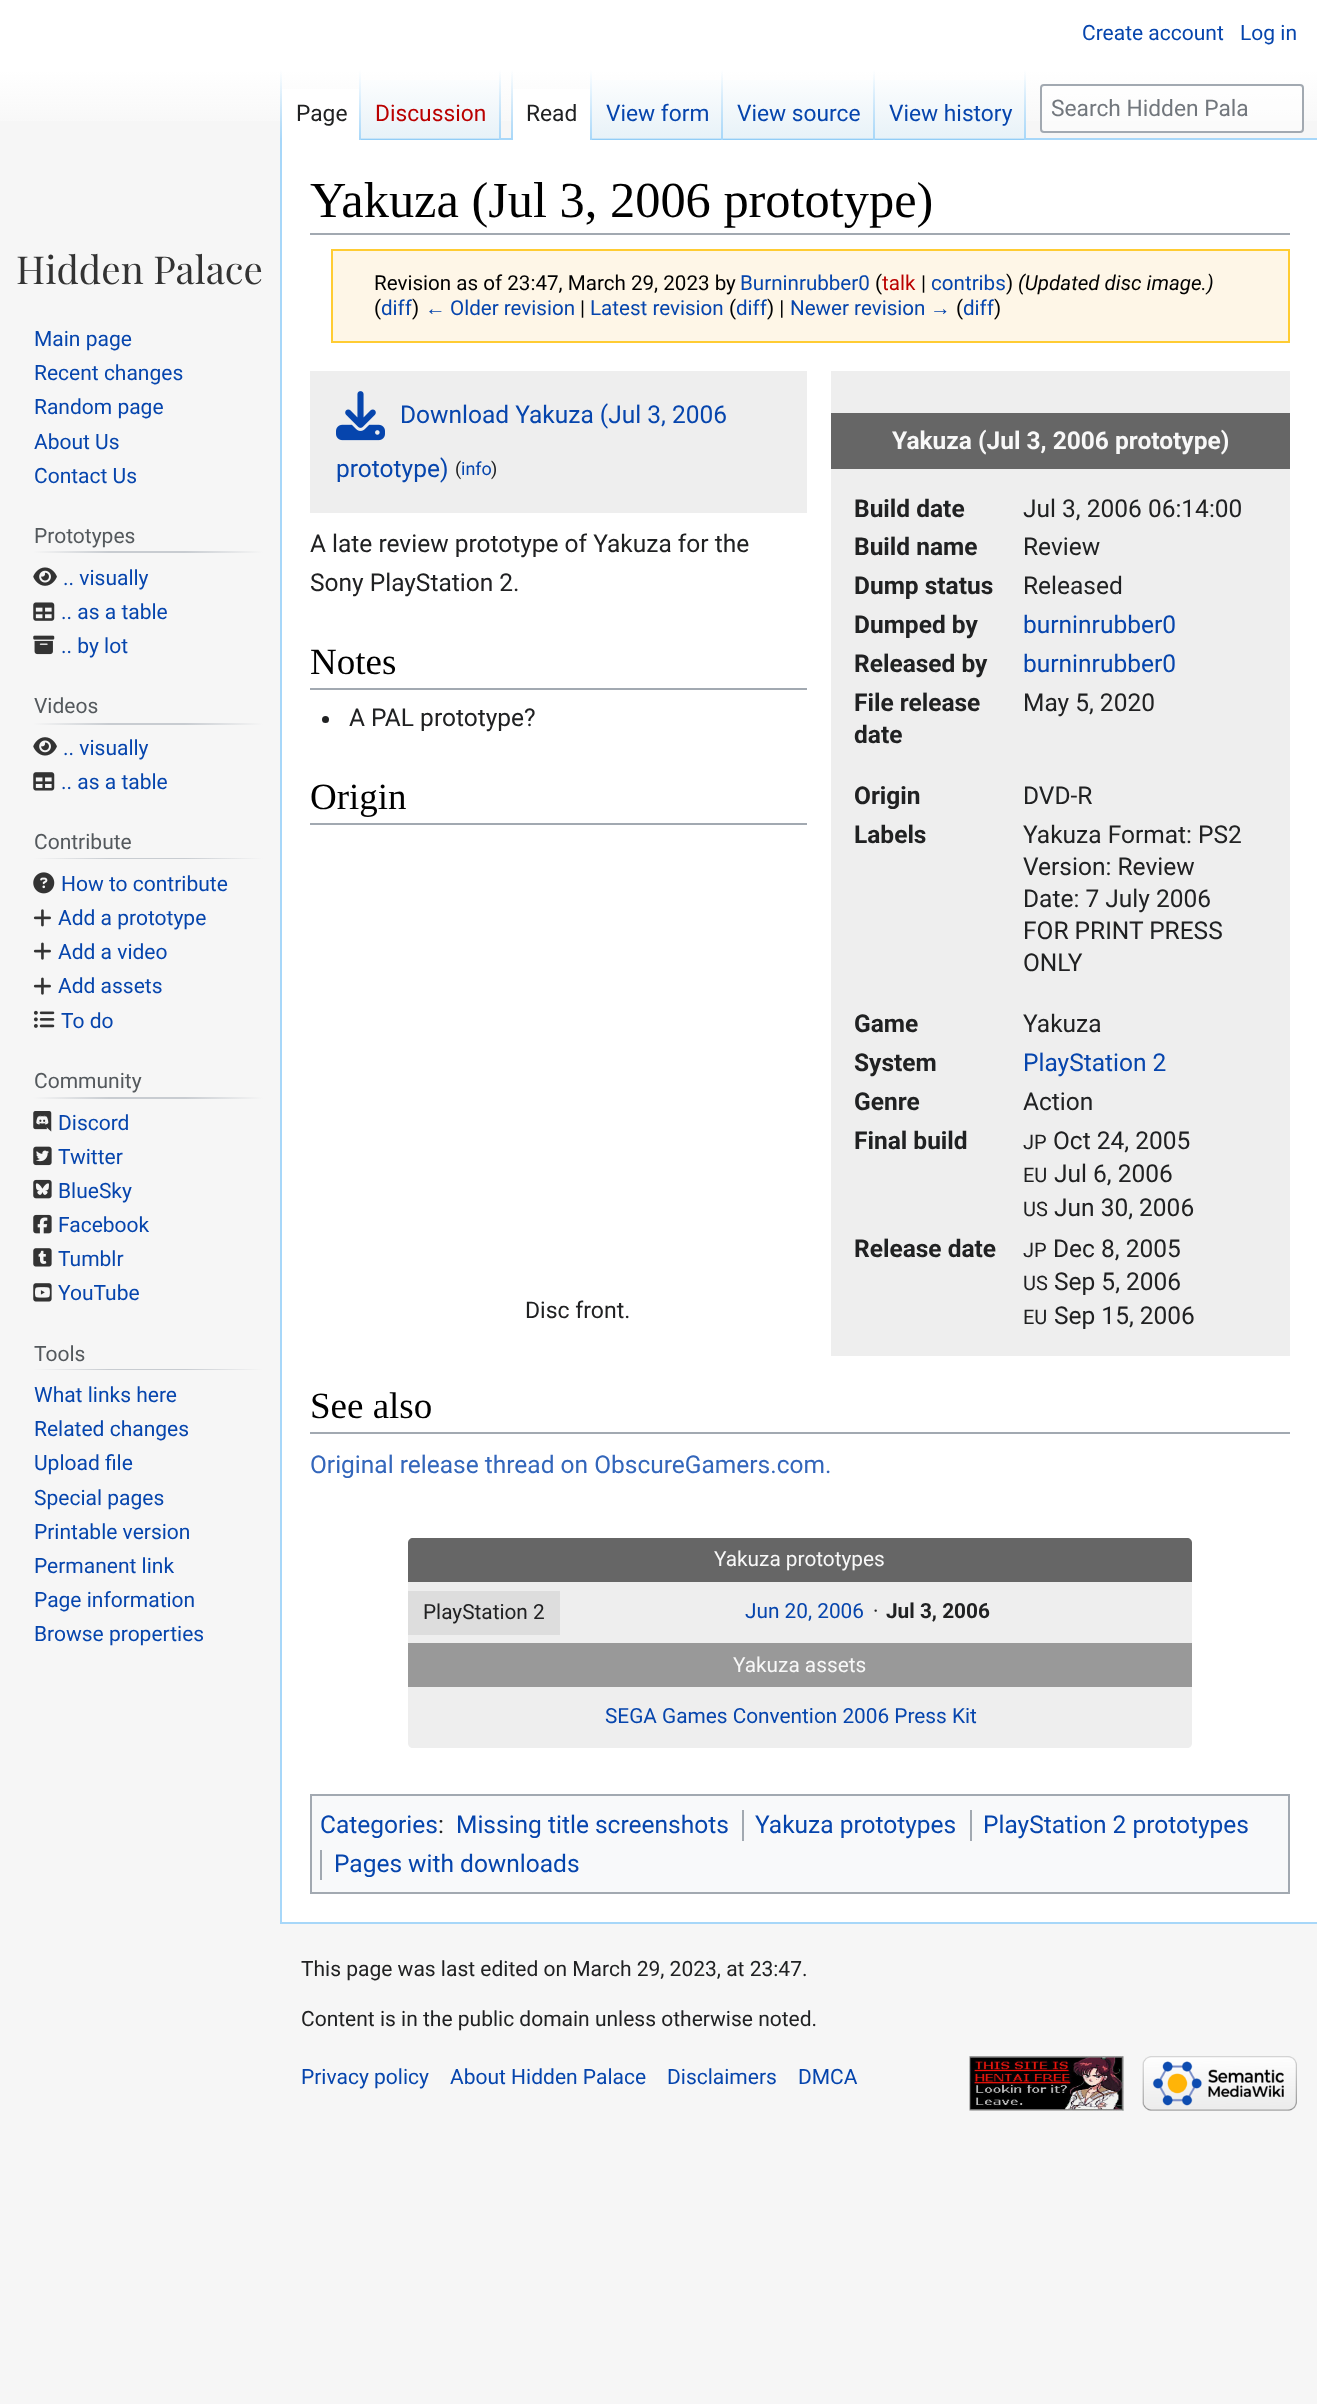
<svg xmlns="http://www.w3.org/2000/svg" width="1317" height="2404">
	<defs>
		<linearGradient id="g1" gradientUnits="userSpaceOnUse" x1="659" y1="0" x2="659" y2="140"><stop offset="0.5" stop-color="#FFFFFF" /><stop offset="1" stop-color="#F6F6F6" /></linearGradient>
		<linearGradient id="g2" gradientUnits="userSpaceOnUse" x1="281" y1="70" x2="281" y2="140"><stop offset="0" stop-color="#A7D7F9" stop-opacity="0" /><stop offset="1" stop-color="#A7D7F9" /></linearGradient>
		<linearGradient id="g3" gradientUnits="userSpaceOnUse" x1="360" y1="70" x2="360" y2="140"><stop offset="0" stop-color="#FFFFFF" /><stop offset="1" stop-color="#A7D7F9" /></linearGradient>
		<linearGradient id="g4" gradientUnits="userSpaceOnUse" x1="431" y1="140" x2="431" y2="70"><stop offset="0" stop-color="#77C1F6" /><stop offset="0.03" stop-color="#E8F2F8" /><stop offset="1" stop-color="#FFFFFF" /></linearGradient>
		<linearGradient id="g5" gradientUnits="userSpaceOnUse" x1="500" y1="70" x2="500" y2="140"><stop offset="0" stop-color="#A7D7F9" stop-opacity="0" /><stop offset="1" stop-color="#A7D7F9" /></linearGradient>
		<linearGradient id="g6" gradientUnits="userSpaceOnUse" x1="512" y1="70" x2="512" y2="140"><stop offset="0" stop-color="#A7D7F9" stop-opacity="0" /><stop offset="1" stop-color="#A7D7F9" /></linearGradient>
		<linearGradient id="g7" gradientUnits="userSpaceOnUse" x1="591" y1="70" x2="591" y2="140"><stop offset="0" stop-color="#FFFFFF" /><stop offset="1" stop-color="#A7D7F9" /></linearGradient>
		<linearGradient id="g8" gradientUnits="userSpaceOnUse" x1="657" y1="140" x2="657" y2="70"><stop offset="0" stop-color="#77C1F6" /><stop offset="0.03" stop-color="#E8F2F8" /><stop offset="1" stop-color="#FFFFFF" /></linearGradient>
		<linearGradient id="g9" gradientUnits="userSpaceOnUse" x1="722" y1="70" x2="722" y2="140"><stop offset="0" stop-color="#A7D7F9" stop-opacity="0" /><stop offset="1" stop-color="#A7D7F9" /></linearGradient>
		<linearGradient id="g10" gradientUnits="userSpaceOnUse" x1="799" y1="140" x2="799" y2="70"><stop offset="0" stop-color="#77C1F6" /><stop offset="0.03" stop-color="#E8F2F8" /><stop offset="1" stop-color="#FFFFFF" /></linearGradient>
		<linearGradient id="g11" gradientUnits="userSpaceOnUse" x1="874" y1="70" x2="874" y2="140"><stop offset="0" stop-color="#A7D7F9" stop-opacity="0" /><stop offset="1" stop-color="#A7D7F9" /></linearGradient>
		<linearGradient id="g12" gradientUnits="userSpaceOnUse" x1="950" y1="140" x2="950" y2="70"><stop offset="0" stop-color="#77C1F6" /><stop offset="0.03" stop-color="#E8F2F8" /><stop offset="1" stop-color="#FFFFFF" /></linearGradient>
		<linearGradient id="g13" gradientUnits="userSpaceOnUse" x1="1025" y1="70" x2="1025" y2="140"><stop offset="0" stop-color="#A7D7F9" stop-opacity="0" /><stop offset="1" stop-color="#A7D7F9" /></linearGradient>
		<linearGradient id="g14" gradientUnits="userSpaceOnUse" x1="33" y1="552" x2="263" y2="552"><stop offset="0" stop-color="#F6F6F6" /><stop offset="0.33" stop-color="#C8CCD1" /><stop offset="0.66" stop-color="#C8CCD1" /><stop offset="1" stop-color="#F6F6F6" /></linearGradient>
		<linearGradient id="g15" gradientUnits="userSpaceOnUse" x1="33" y1="724" x2="263" y2="724"><stop offset="0" stop-color="#F6F6F6" /><stop offset="0.33" stop-color="#C8CCD1" /><stop offset="0.66" stop-color="#C8CCD1" /><stop offset="1" stop-color="#F6F6F6" /></linearGradient>
		<linearGradient id="g16" gradientUnits="userSpaceOnUse" x1="33" y1="858" x2="263" y2="858"><stop offset="0" stop-color="#F6F6F6" /><stop offset="0.33" stop-color="#C8CCD1" /><stop offset="0.66" stop-color="#C8CCD1" /><stop offset="1" stop-color="#F6F6F6" /></linearGradient>
		<linearGradient id="g17" gradientUnits="userSpaceOnUse" x1="33" y1="1098" x2="263" y2="1098"><stop offset="0" stop-color="#F6F6F6" /><stop offset="0.33" stop-color="#C8CCD1" /><stop offset="0.66" stop-color="#C8CCD1" /><stop offset="1" stop-color="#F6F6F6" /></linearGradient>
		<linearGradient id="g18" gradientUnits="userSpaceOnUse" x1="33" y1="1369" x2="263" y2="1369"><stop offset="0" stop-color="#F6F6F6" /><stop offset="0.33" stop-color="#C8CCD1" /><stop offset="0.66" stop-color="#C8CCD1" /><stop offset="1" stop-color="#F6F6F6" /></linearGradient>
	</defs>
	<rect width="100%" height="100%" fill="#F6F6F6" />
	<rect x="0" y="0" width="1317" height="121" fill="url(#g1)" />
	<g font-family="Roboto" font-size="21" fill="#0645AD">
		<text x="1082" y="40">Create account</text>
		<text x="1240" y="40">Log in</text>
	</g>
	<rect x="280" y="1922" width="1037" height="2" fill="#A7D7F9" />
	<rect x="280" y="138" width="2" height="1785" fill="#A7D7F9" />
	<rect x="280" y="70" width="2" height="70" fill="url(#g2)" />
	<rect x="282" y="89" width="77" height="51" fill="#FFFFFF" />
	<rect x="359" y="70" width="2" height="70" fill="url(#g3)" />
	<text x="296" y="121" font-family="Roboto" font-size="22.75" fill="#202122">Page</text>
	<rect x="361" y="80" width="140" height="60" fill="url(#g4)" />
	<rect x="499" y="70" width="2" height="70" fill="url(#g5)" />
	<text x="375" y="121" font-family="Roboto" font-size="22.75" fill="#BA0000">Discussion</text>
	<rect x="501" y="138" width="816" height="2" fill="#A7D7F9" />
	<rect x="511" y="70" width="2" height="70" fill="url(#g6)" />
	<rect x="513" y="89" width="77" height="51" fill="#FFFFFF" />
	<rect x="590" y="70" width="2" height="70" fill="url(#g7)" />
	<text x="526" y="121" font-family="Roboto" font-size="22.75" fill="#202122">Read</text>
	<rect x="592" y="80" width="131" height="60" fill="url(#g8)" />
	<rect x="721" y="70" width="2" height="70" fill="url(#g9)" />
	<text x="606" y="121" font-family="Roboto" font-size="22.75" fill="#0645AD">View form</text>
	<rect x="723" y="80" width="152" height="60" fill="url(#g10)" />
	<rect x="873" y="70" width="2" height="70" fill="url(#g11)" />
	<text x="737" y="121" font-family="Roboto" font-size="22.75" fill="#0645AD">View source</text>
	<rect x="875" y="80" width="151" height="60" fill="url(#g12)" />
	<rect x="1024" y="70" width="2" height="70" fill="url(#g13)" />
	<text x="889" y="121" font-family="Roboto" font-size="22.75" fill="#0645AD">View history</text>
	<rect x="1041" y="85" width="262" height="47" rx="3" fill="#FFFFFF" fill-opacity="0.5" stroke="#A2A9B1" stroke-width="2" />
	<text x="1051" y="116" font-family="Roboto" font-size="22.75" fill="#72777D">Search Hidden Pala</text>
	<text x="16" y="284" font-family="Playfair Display" font-size="38.5" fill="#333333">Hidden Palace</text>
	<g font-family="Roboto" font-size="21" fill="#0645AD">
		<text x="34" y="346">Main page</text>
		<text x="34" y="380">Recent changes</text>
		<text x="34" y="414">Random page</text>
		<text x="34" y="449">About Us</text>
		<text x="34" y="483">Contact Us</text>
	</g>
	<rect x="33" y="551" width="230" height="2" fill="url(#g14)" />
	<text x="34" y="543" font-family="Roboto" font-size="21" fill="#54595D">Prototypes</text>
	<image x="33" y="567" width="24" height="19" href="assets/img1.png" />
	<text x="63" y="585" font-family="Roboto" font-size="21" fill="#0645AD">.. visually</text>
	<image x="33" y="602" width="22" height="19" href="assets/img2.png" />
	<text x="61" y="619" font-family="Roboto" font-size="21" fill="#0645AD">.. as a table</text>
	<image x="33" y="635" width="22" height="20" href="assets/img3.png" />
	<text x="61" y="653" font-family="Roboto" font-size="21" fill="#0645AD">.. by lot</text>
	<rect x="33" y="723" width="230" height="2" fill="url(#g15)" />
	<text x="34" y="713" font-family="Roboto" font-size="21" fill="#54595D">Videos</text>
	<image x="33" y="737" width="24" height="19" href="assets/img4.png" />
	<text x="63" y="755" font-family="Roboto" font-size="21" fill="#0645AD">.. visually</text>
	<image x="33" y="772" width="22" height="19" href="assets/img5.png" />
	<text x="61" y="789" font-family="Roboto" font-size="21" fill="#0645AD">.. as a table</text>
	<rect x="33" y="858" width="230" height="1" fill="url(#g16)" />
	<text x="34" y="849" font-family="Roboto" font-size="21" fill="#54595D">Contribute</text>
	<image x="33" y="872" width="22" height="22" href="assets/img6.png" />
	<text x="61" y="891" font-family="Roboto" font-size="21" fill="#0645AD">How to contribute</text>
	<image x="33" y="909" width="18" height="18" href="assets/img7.png" />
	<text x="58" y="925" font-family="Roboto" font-size="21" fill="#0645AD">Add a prototype</text>
	<image x="33" y="942" width="18" height="18" href="assets/img8.png" />
	<text x="58" y="959" font-family="Roboto" font-size="21" fill="#0645AD">Add a video</text>
	<image x="33" y="977" width="18" height="18" href="assets/img8.png" />
	<text x="58" y="993" font-family="Roboto" font-size="21" fill="#0645AD">Add assets</text>
	<image x="33" y="1010" width="22" height="18" href="assets/img9.png" />
	<text x="61" y="1028" font-family="Roboto" font-size="21" fill="#0645AD">To do</text>
	<rect x="33" y="1097" width="230" height="2" fill="url(#g17)" />
	<text x="34" y="1088" font-family="Roboto" font-size="21" fill="#54595D">Community</text>
	<image x="33" y="1111" width="19" height="21" href="assets/img10.png" />
	<text x="58" y="1130" font-family="Roboto" font-size="21" fill="#0645AD">Discord</text>
	<image x="33" y="1146" width="19" height="20" href="assets/img11.png" />
	<text x="58" y="1164" font-family="Roboto" font-size="21" fill="#0645AD">Twitter</text>
	<image x="33" y="1179" width="19" height="20" href="assets/img12.png" />
	<text x="58" y="1198" font-family="Roboto" font-size="21" fill="#0645AD">BlueSky</text>
	<image x="33" y="1214" width="19" height="20" href="assets/img13.png" />
	<text x="58" y="1232" font-family="Roboto" font-size="21" fill="#0645AD">Facebook</text>
	<image x="33" y="1248" width="19" height="19" href="assets/img14.png" />
	<text x="58" y="1266" font-family="Roboto" font-size="21" fill="#0645AD">Tumblr</text>
	<image x="33" y="1283" width="19" height="19" href="assets/img15.png" />
	<text x="58" y="1300" font-family="Roboto" font-size="21" fill="#0645AD">YouTube</text>
	<rect x="33" y="1369" width="230" height="1" fill="url(#g18)" />
	<text x="34" y="1361" font-family="Roboto" font-size="21" fill="#54595D">Tools</text>
	<g font-family="Roboto" font-size="21" fill="#0645AD">
		<text x="34" y="1402">What links here</text>
		<text x="34" y="1436">Related changes</text>
		<text x="34" y="1470">Upload file</text>
		<text x="34" y="1505">Special pages</text>
		<text x="34" y="1539">Printable version</text>
		<text x="34" y="1573">Permanent link</text>
		<text x="34" y="1607">Page information</text>
		<text x="34" y="1641">Browse properties</text>
	</g>
	<rect x="282" y="140" width="1035" height="1782" fill="#FFFFFF" />
	<rect x="310" y="233" width="980" height="2" fill="#A2A9B1" />
	<text x="310" y="217" font-family="Liberation Serif" font-size="50.4" fill="#000000">Yakuza (Jul 3, 2006 prototype)</text>
	<rect x="332" y="250" width="957" height="92" fill="#FEF6E7" stroke="#FFCC33" stroke-width="2" />
	<text x="374" y="290" font-family="Roboto" font-size="20.6" fill="#000000">Revision as of 23:47, March 29, 2023 by</text>
	<text x="740" y="290" font-family="Roboto" font-size="20.6" fill="#0645AD">Burninrubber0</text>
	<text x="875" y="290" font-family="Roboto" font-size="20.6" fill="#000000">(</text>
	<text x="882" y="290" font-family="Roboto" font-size="20.6" fill="#BA0000">talk</text>
	<text x="921" y="290" font-family="Roboto" font-size="20.6" fill="#000000">|</text>
	<text x="931" y="290" font-family="Roboto" font-size="20.6" fill="#0645AD">contribs</text>
	<text x="1006" y="290" font-family="Roboto" font-size="20.6" fill="#000000">)</text>
	<text x="1018" y="290" font-family="Roboto" font-size="20.6" font-style="italic" fill="#000000">(Updated disc image.)</text>
	<text x="374" y="315" font-family="Roboto" font-size="20.6" fill="#000000">(</text>
	<text x="381" y="315" font-family="Roboto" font-size="20.6" fill="#0645AD">diff</text>
	<text x="412" y="315" font-family="Roboto" font-size="20.6" fill="#000000">)</text>
	<text x="425" y="315" font-family="Liberation Sans" font-size="20.6" fill="#0645AD">←</text>
	<text x="450" y="315" font-family="Roboto" font-size="20.6" fill="#0645AD">Older revision</text>
	<text x="580" y="315" font-family="Roboto" font-size="20.6" fill="#000000">|</text>
	<text x="590" y="315" font-family="Roboto" font-size="20.6" fill="#0645AD">Latest revision</text>
	<text x="729" y="315" font-family="Roboto" font-size="20.6" fill="#000000">(</text>
	<text x="736" y="315" font-family="Roboto" font-size="20.6" fill="#0645AD">diff</text>
	<text x="767" y="315" font-family="Roboto" font-size="20.6" fill="#000000">) |</text>
	<text x="790" y="315" font-family="Roboto" font-size="20.6" fill="#0645AD">Newer revision</text>
	<text x="930" y="315" font-family="Liberation Sans" font-size="20.6" fill="#0645AD">→</text>
	<text x="956" y="315" font-family="Roboto" font-size="20.6" fill="#000000">(</text>
	<text x="963" y="315" font-family="Roboto" font-size="20.6" fill="#0645AD">diff</text>
	<text x="994" y="315" font-family="Roboto" font-size="20.6" fill="#000000">)</text>
	<rect x="310" y="371" width="497" height="142" fill="#EEEEEE" />
	<image x="336" y="391" width="49" height="50" href="assets/img16.png" />
	<g font-family="Roboto" font-size="24.5" fill="#0645AD">
		<text x="400" y="423">Download Yakuza (Jul 3, 2006</text>
		<text x="336" y="477">prototype)</text>
	</g>
	<text x="455" y="475" font-family="Roboto" font-size="18" fill="#202122">(</text>
	<text x="461" y="475" font-family="Roboto" font-size="18" fill="#0645AD">info</text>
	<text x="491" y="475" font-family="Roboto" font-size="18" fill="#202122">)</text>
	<rect x="831" y="371" width="459" height="985" fill="#EEEEEE" />
	<rect x="831" y="413" width="459" height="56" fill="#666666" />
	<text x="892" y="449" font-family="Roboto" font-size="24.5" font-weight="700" fill="#F8F8F8">Yakuza (Jul 3, 2006 prototype)</text>
	<text x="854" y="517" font-family="Roboto" font-size="24.5" font-weight="700" fill="#202122">Build date</text>
	<text x="1023" y="517" font-family="Roboto" font-size="24.5" fill="#202122">Jul 3, 2006 06:14:00</text>
	<text x="854" y="555" font-family="Roboto" font-size="24.5" font-weight="700" fill="#202122">Build name</text>
	<text x="1023" y="555" font-family="Roboto" font-size="24.5" fill="#202122">Review</text>
	<text x="854" y="594" font-family="Roboto" font-size="24.5" font-weight="700" fill="#202122">Dump status</text>
	<text x="1023" y="594" font-family="Roboto" font-size="24.5" fill="#202122">Released</text>
	<text x="854" y="633" font-family="Roboto" font-size="24.5" font-weight="700" fill="#202122">Dumped by</text>
	<text x="1023" y="633" font-family="Roboto" font-size="24.5" fill="#0645AD">burninrubber0</text>
	<text x="854" y="672" font-family="Roboto" font-size="24.5" font-weight="700" fill="#202122">Released by</text>
	<text x="1023" y="672" font-family="Roboto" font-size="24.5" fill="#0645AD">burninrubber0</text>
	<g font-family="Roboto" font-size="24.5" font-weight="700" fill="#202122">
		<text x="854" y="711">File release</text>
		<text x="854" y="743">date</text>
	</g>
	<text x="1023" y="711" font-family="Roboto" font-size="24.5" fill="#202122">May 5, 2020</text>
	<text x="854" y="804" font-family="Roboto" font-size="24.5" font-weight="700" fill="#202122">Origin</text>
	<text x="1023" y="804" font-family="Roboto" font-size="24.5" fill="#202122">DVD-R</text>
	<text x="854" y="843" font-family="Roboto" font-size="24.5" font-weight="700" fill="#202122">Labels</text>
	<g font-family="Roboto" font-size="24.5" fill="#202122">
		<text x="1023" y="843">Yakuza Format: PS2</text>
		<text x="1023" y="875">Version: Review</text>
		<text x="1023" y="907">Date: 7 July 2006</text>
		<text x="1023" y="939">FOR PRINT PRESS</text>
		<text x="1023" y="971">ONLY</text>
	</g>
	<text x="854" y="1032" font-family="Roboto" font-size="24.5" font-weight="700" fill="#202122">Game</text>
	<text x="1023" y="1032" font-family="Roboto" font-size="24.5" fill="#202122">Yakuza</text>
	<text x="854" y="1071" font-family="Roboto" font-size="24.5" font-weight="700" fill="#202122">System</text>
	<text x="1023" y="1071" font-family="Roboto" font-size="24.5" fill="#0645AD">PlayStation 2</text>
	<text x="854" y="1110" font-family="Roboto" font-size="24.5" font-weight="700" fill="#202122">Genre</text>
	<text x="1023" y="1110" font-family="Roboto" font-size="24.5" fill="#202122">Action</text>
	<text x="854" y="1149" font-family="Roboto" font-size="24.5" font-weight="700" fill="#202122">Final build</text>
	<text x="1023" y="1149" font-family="Roboto" font-size="20" fill="#202122">JP</text>
	<text x="1053" y="1149" font-family="Roboto" font-size="24.5" fill="#202122">Oct 24, 2005</text>
	<text x="1023" y="1182" font-family="Roboto" font-size="20" fill="#202122">EU</text>
	<text x="1054" y="1182" font-family="Roboto" font-size="24.5" fill="#202122">Jul 6, 2006</text>
	<text x="1023" y="1216" font-family="Roboto" font-size="20" fill="#202122">US</text>
	<text x="1054" y="1216" font-family="Roboto" font-size="24.5" fill="#202122">Jun 30, 2006</text>
	<text x="854" y="1257" font-family="Roboto" font-size="24.5" font-weight="700" fill="#202122">Release date</text>
	<text x="1023" y="1257" font-family="Roboto" font-size="20" fill="#202122">JP</text>
	<text x="1053" y="1257" font-family="Roboto" font-size="24.5" fill="#202122">Dec 8, 2005</text>
	<text x="1023" y="1290" font-family="Roboto" font-size="20" fill="#202122">US</text>
	<text x="1054" y="1290" font-family="Roboto" font-size="24.5" fill="#202122">Sep 5, 2006</text>
	<text x="1023" y="1324" font-family="Roboto" font-size="20" fill="#202122">EU</text>
	<g font-family="Roboto" font-size="24.5" fill="#202122">
		<text x="1054" y="1324">Sep 15, 2006</text>
		<text x="310" y="552">A late review prototype of Yakuza for the</text>
		<text x="310" y="591">Sony PlayStation 2.</text>
	</g>
	<rect x="310" y="688" width="497" height="2" fill="#A2A9B1" />
	<text x="310" y="674" font-family="Liberation Serif" font-size="37" fill="#000000">Notes</text>
	<circle cx="325.5" cy="719.5" r="3.5" fill="#202122" />
	<text x="349" y="726" font-family="Roboto" font-size="24.5" fill="#202122">A PAL prototype?</text>
	<rect x="310" y="823" width="497" height="2" fill="#A2A9B1" />
	<text x="310" y="809" font-family="Liberation Serif" font-size="37" fill="#000000">Origin</text>
	<text x="525" y="1318" font-family="Roboto" font-size="23" fill="#202122">Disc front.</text>
	<rect x="310" y="1432" width="980" height="2" fill="#A2A9B1" />
	<text x="310" y="1418" font-family="Liberation Serif" font-size="37" fill="#000000">See also</text>
	<text x="310" y="1473" font-family="Roboto" font-size="24.5" fill="#3366BB">Original release thread on ObscureGamers.com.</text>
	<path d="M413 1538H1187C1190 1538 1192 1540 1192 1543V1582H408V1543C408 1540 410 1538 413 1538Z" fill="#666666" />
	<text x="714" y="1566" font-family="Roboto" font-size="20.8" fill="#F8F8F8">Yakuza prototypes</text>
	<rect x="408" y="1582" width="784" height="61" fill="#EEEEEE" />
	<rect x="408" y="1591" width="152" height="44" fill="#DDDDDD" />
	<text x="423" y="1619" font-family="Roboto" font-size="20.8" fill="#202122">PlayStation 2</text>
	<text x="745" y="1618" font-family="Roboto" font-size="20.8" fill="#0645AD">Jun 20, 2006</text>
	<text x="873" y="1618" font-family="Roboto" font-size="20.8" fill="#202122">·</text>
	<text x="886" y="1618" font-family="Roboto" font-size="20.8" font-weight="700" fill="#202122">Jul 3, 2006</text>
	<rect x="408" y="1643" width="784" height="44" fill="#999999" />
	<text x="733" y="1672" font-family="Roboto" font-size="20.8" fill="#F8F8F8">Yakuza assets</text>
	<path d="M408 1687H1192V1743C1192 1746 1190 1748 1187 1748H413C410 1748 408 1746 408 1743Z" fill="#EEEEEE" />
	<text x="605" y="1723" font-family="Roboto" font-size="20.8" fill="#0645AD">SEGA Games Convention 2006 Press Kit</text>
	<rect x="311" y="1795" width="978" height="98" fill="#F8F9FA" stroke="#A2A9B1" stroke-width="2" />
	<text x="456" y="1833" font-family="Roboto" font-size="24.5" fill="#0645AD">Missing title screenshots</text>
	<rect x="742" y="1810" width="2" height="31" fill="#A2A9B1" />
	<text x="755" y="1833" font-family="Roboto" font-size="24.5" fill="#0645AD">Yakuza prototypes</text>
	<rect x="970" y="1810" width="2" height="31" fill="#A2A9B1" />
	<text x="983" y="1833" font-family="Roboto" font-size="24.5" fill="#0645AD">PlayStation 2 prototypes</text>
	<rect x="320" y="1850" width="2" height="30" fill="#A2A9B1" />
	<g font-family="Roboto" font-size="24.5" fill="#0645AD">
		<text x="334" y="1872">Pages with downloads</text>
		<text x="320" y="1833">Categories</text>
	</g>
	<text x="438" y="1833" font-family="Roboto" font-size="24.5" fill="#202122">:</text>
	<g font-family="Roboto" font-size="21" fill="#202122">
		<text x="301" y="1976">This page was last edited on March 29, 2023, at 23:47.</text>
		<text x="301" y="2026">Content is in the public domain unless otherwise noted.</text>
	</g>
	<g font-family="Roboto" font-size="21" fill="#0645AD">
		<text x="301" y="2084">Privacy policy</text>
		<text x="450" y="2084">About Hidden Palace</text>
		<text x="667" y="2084">Disclaimers</text>
		<text x="798" y="2084">DMCA</text>
	</g>
	<image x="969" y="2056" width="155" height="55" href="assets/img17.png" />
	<image x="1142" y="2056" width="155" height="55" href="assets/img18.png" />
</svg>
